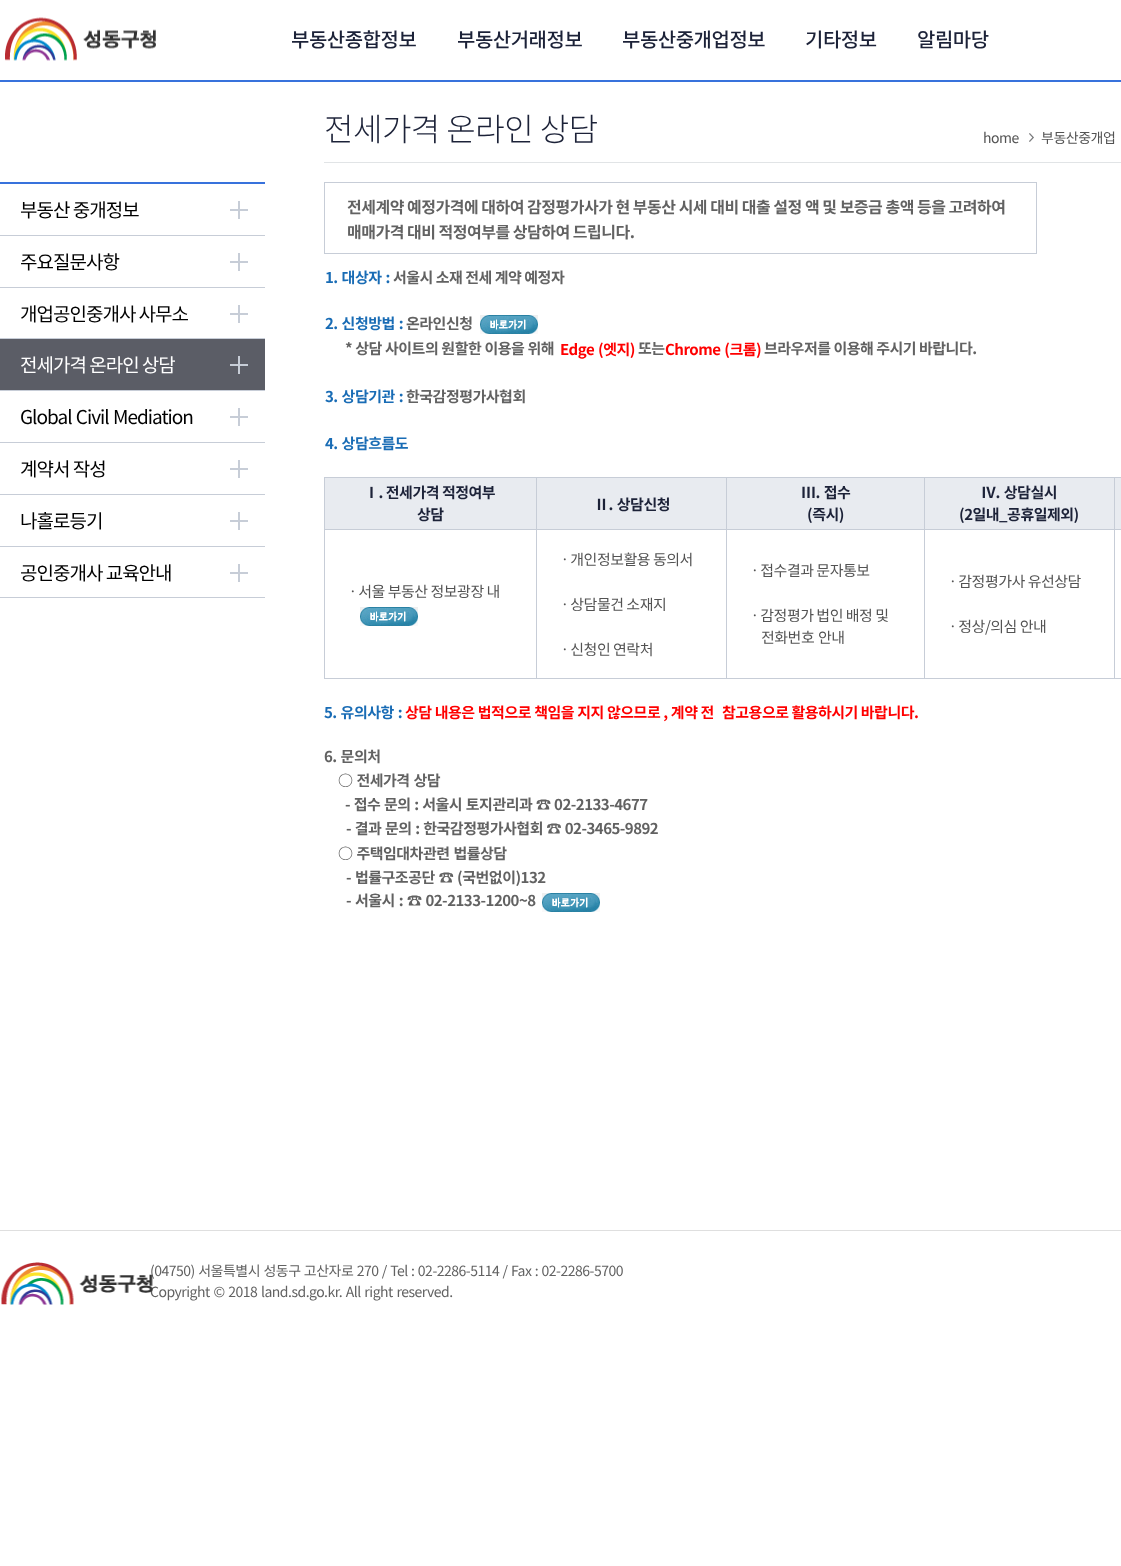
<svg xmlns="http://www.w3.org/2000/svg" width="1121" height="1566">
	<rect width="100%" height="100%" fill="#FFFFFF" />
	<rect x="0" y="80" width="1121" height="2" fill="#3872DC" />
	<image x="5" y="17" width="151" height="44" href="assets/img1.png" />
	<g font-family="Noto Sans KR" font-size="20" font-weight="500" letter-spacing="-0.5" fill="#1C2238">
		<text x="291" y="47">부동산종합정보</text>
		<text x="457" y="47">부동산거래정보</text>
		<text x="622" y="47">부동산중개업정보</text>
		<text x="805" y="47">기타정보</text>
		<text x="917" y="47">알림마당</text>
	</g>
	<rect x="0" y="182" width="265" height="2" fill="#3872DC" />
	<rect x="0" y="235" width="265" height="1" fill="#C7CDD7" />
	<image x="230" y="201" width="18" height="18" href="assets/img2.png" />
	<text x="20" y="217" font-family="Noto Sans KR" font-size="19" letter-spacing="-1" fill="#000000">부동산 중개정보</text>
	<rect x="0" y="287" width="265" height="1" fill="#C7CDD7" />
	<image x="230" y="253" width="18" height="18" href="assets/img2.png" />
	<text x="20" y="269" font-family="Noto Sans KR" font-size="19" letter-spacing="-1" fill="#000000">주요질문사항</text>
	<rect x="0" y="338" width="265" height="1" fill="#C7CDD7" />
	<image x="230" y="305" width="18" height="18" href="assets/img2.png" />
	<text x="20" y="321" font-family="Noto Sans KR" font-size="19" letter-spacing="-1" fill="#000000">개업공인중개사 사무소</text>
	<rect x="0" y="390" width="265" height="1" fill="#C7CDD7" />
	<rect x="0" y="339" width="265" height="51" fill="#5B5D66" />
	<image x="230" y="356" width="18" height="18" href="assets/img3.png" />
	<text x="20" y="372" font-family="Noto Sans KR" font-size="19" letter-spacing="-1" fill="#FFFFFF">전세가격 온라인 상담</text>
	<rect x="0" y="442" width="265" height="1" fill="#C7CDD7" />
	<image x="230" y="408" width="18" height="18" href="assets/img2.png" />
	<text x="20" y="424" word-spacing="1" font-family="Noto Sans KR" font-size="19" letter-spacing="-1" fill="#000000">Global Civil Mediation</text>
	<rect x="0" y="494" width="265" height="1" fill="#C7CDD7" />
	<image x="230" y="460" width="18" height="18" href="assets/img2.png" />
	<text x="20" y="476" font-family="Noto Sans KR" font-size="19" letter-spacing="-1" fill="#000000">계약서 작성</text>
	<rect x="0" y="546" width="265" height="1" fill="#C7CDD7" />
	<image x="230" y="512" width="18" height="18" href="assets/img2.png" />
	<text x="20" y="528" font-family="Noto Sans KR" font-size="19" letter-spacing="-1" fill="#000000">나홀로등기</text>
	<rect x="0" y="597" width="265" height="1" fill="#C7CDD7" />
	<image x="230" y="564" width="18" height="18" href="assets/img2.png" />
	<text x="20" y="580" font-family="Noto Sans KR" font-size="19" letter-spacing="-1" fill="#000000">공인중개사 교육안내</text>
	<rect x="324" y="162" width="797" height="1" fill="#E1E4E6" />
	<text x="324" y="141" font-family="Noto Sans KR" font-size="32" font-weight="300" letter-spacing="-0.5" fill="#1C2238">전세가격 온라인 상담</text>
	<text x="983" y="143" font-family="Noto Sans KR" font-size="14" letter-spacing="-0.5" fill="#535353">home</text>
	<image x="1029" y="133" width="5" height="9" href="assets/img4.png" />
	<text x="1041" y="143" font-family="Noto Sans KR" font-size="14" letter-spacing="-0.5" fill="#535353">부동산중개업</text>
	<rect x="324" y="182" width="713" height="1" fill="#C7CDD7" />
	<rect x="1036" y="182" width="1" height="72" fill="#C7CDD7" />
	<rect x="324" y="253" width="713" height="1" fill="#C7CDD7" />
	<rect x="324" y="182" width="1" height="72" fill="#C7CDD7" />
	<g font-family="Noto Sans KR" font-size="16" font-weight="700" letter-spacing="-0.5" fill="#626262">
		<text x="347" y="213">전세계약 예정가격에 대하여 감정평가사가 현 부동산 시세 대비 대출 설정 액 및 보증금 총액 등을 고려하여</text>
		<text x="347" y="238">매매가격 대비 적정여부를 상담하여 드립니다.</text>
	</g>
	<text x="325" y="283" word-spacing="1" font-family="Noto Sans KR" font-size="15" font-weight="700" letter-spacing="-0.5" fill="#196CB5">1. 대상자 :</text>
	<text x="393" y="283" font-family="Noto Sans KR" font-size="15" font-weight="700" letter-spacing="-0.5" fill="#626262">서울시 소재 전세 계약 예정자</text>
	<text x="325" y="329" word-spacing="1" font-family="Noto Sans KR" font-size="15" font-weight="700" letter-spacing="-0.5" fill="#196CB5">2. 신청방법 :</text>
	<text x="406" y="329" font-family="Noto Sans KR" font-size="15" font-weight="700" letter-spacing="-0.5" fill="#626262">온라인신청</text>
	<image x="480" y="315" width="58" height="19" href="assets/img5.png" />
	<text x="345" y="354" word-spacing="0.25" font-family="Noto Sans KR" font-size="15" font-weight="700" letter-spacing="-0.5" fill="#626262">* 상담 사이트의 원할한 이용을 위해</text>
	<text x="560" y="355" word-spacing="1" font-family="Noto Sans KR" font-size="15" font-weight="700" letter-spacing="-0.5" fill="#FF0000">Edge (엣지)</text>
	<text x="638" y="354" font-family="Noto Sans KR" font-size="15" font-weight="700" letter-spacing="-0.5" fill="#626262">또는</text>
	<text x="665" y="355" word-spacing="1" font-family="Noto Sans KR" font-size="15" font-weight="700" letter-spacing="-0.5" fill="#FF0000">Chrome (크롬)</text>
	<text x="764" y="354" font-family="Noto Sans KR" font-size="15" font-weight="700" letter-spacing="-0.5" fill="#626262">브라우저를 이용해 주시기 바랍니다.</text>
	<text x="325" y="402" word-spacing="1" font-family="Noto Sans KR" font-size="15" font-weight="700" letter-spacing="-0.5" fill="#196CB5">3. 상담기관 :</text>
	<text x="406" y="402" font-family="Noto Sans KR" font-size="15" font-weight="700" letter-spacing="-0.5" fill="#626262">한국감정평가사협회</text>
	<text x="325" y="449" word-spacing="1" font-family="Noto Sans KR" font-size="15" font-weight="700" letter-spacing="-0.5" fill="#196CB5">4. 상담흐름도</text>
	<rect x="324" y="678" width="797" height="1" fill="#C7CDD7" />
	<rect x="325" y="478" width="211" height="51" fill="#E8EBF0" />
	<rect x="1115" y="477" width="6" height="52" fill="#E8EBF0" />
	<rect x="1114" y="477" width="7" height="1" fill="#C7CDD7" />
	<rect x="1114" y="529" width="7" height="1" fill="#C7CDD7" />
	<rect x="1114" y="529" width="1" height="150" fill="#C7CDD7" />
	<rect x="924" y="529" width="191" height="1" fill="#C7CDD7" />
	<rect x="1114" y="477" width="1" height="53" fill="#C7CDD7" />
	<rect x="924" y="477" width="191" height="1" fill="#C7CDD7" />
	<rect x="924" y="529" width="1" height="150" fill="#C7CDD7" />
	<rect x="726" y="529" width="199" height="1" fill="#C7CDD7" />
	<rect x="924" y="477" width="1" height="53" fill="#C7CDD7" />
	<rect x="726" y="477" width="199" height="1" fill="#C7CDD7" />
	<rect x="726" y="529" width="1" height="150" fill="#C7CDD7" />
	<rect x="536" y="529" width="191" height="1" fill="#C7CDD7" />
	<rect x="726" y="477" width="1" height="53" fill="#C7CDD7" />
	<rect x="536" y="477" width="191" height="1" fill="#C7CDD7" />
	<rect x="536" y="529" width="1" height="150" fill="#C7CDD7" />
	<rect x="324" y="529" width="213" height="1" fill="#C7CDD7" />
	<rect x="536" y="477" width="1" height="53" fill="#C7CDD7" />
	<rect x="324" y="477" width="213" height="1" fill="#C7CDD7" />
	<rect x="324" y="529" width="1" height="150" fill="#C7CDD7" />
	<rect x="324" y="477" width="1" height="53" fill="#C7CDD7" />
	<g font-family="Noto Sans KR" font-size="15" font-weight="700" letter-spacing="-0.5" fill="#1C2238">
		<text x="364" y="498">Ⅰ. 전세가격 적정여부</text>
		<text x="417" y="520">상담</text>
	</g>
	<rect x="537" y="478" width="189" height="51" fill="#E8EBF0" />
	<text x="594" y="510" word-spacing="1" font-family="Noto Sans KR" font-size="15" font-weight="700" letter-spacing="-0.5" fill="#1C2238">Ⅱ. 상담신청</text>
	<rect x="727" y="478" width="197" height="51" fill="#E8EBF0" />
	<g font-family="Noto Sans KR" font-size="15" font-weight="700" letter-spacing="-0.5" fill="#1C2238">
		<text x="801" y="498" word-spacing="1">Ⅲ. 접수</text>
		<text x="807" y="520">(즉시)</text>
	</g>
	<rect x="925" y="478" width="189" height="51" fill="#E8EBF0" />
	<g font-family="Noto Sans KR" font-size="15" font-weight="700" letter-spacing="-0.5" fill="#1C2238">
		<text x="981" y="498" word-spacing="1">Ⅳ. 상담실시</text>
		<text x="959" y="520">(2일내_공휴일제외)</text>
	</g>
	<text x="345" y="597" font-family="Noto Sans KR" font-size="15" letter-spacing="-0.5" fill="#535353">ㆍ서울 부동산 정보광장 내</text>
	<image x="360" y="607" width="58" height="19" href="assets/img5.png" />
	<g font-family="Noto Sans KR" font-size="15" letter-spacing="-0.5" fill="#535353">
		<text x="557" y="565">ㆍ개인정보활용 동의서</text>
		<text x="557" y="610">ㆍ상담물건 소재지</text>
		<text x="557" y="655">ㆍ신청인 연락처</text>
		<text x="747" y="576">ㆍ접수결과 문자통보</text>
		<text x="747" y="621">ㆍ감정평가 법인 배정 및</text>
		<text x="761" y="643" word-spacing="1">전화번호 안내</text>
		<text x="945" y="587">ㆍ감정평가사 유선상담</text>
		<text x="945" y="632">ㆍ정상/의심 안내</text>
	</g>
	<text x="324" y="718" word-spacing="1" font-family="Noto Sans KR" font-size="15" font-weight="700" letter-spacing="-0.5" fill="#196CB5">5. 유의사항 :</text>
	<g font-family="Noto Sans KR" font-size="15" font-weight="700" letter-spacing="-0.5" fill="#FF0000">
		<text x="405" y="718" word-spacing="0.25">상담 내용은 법적으로 책임을 지지 않으므로 , 계약 전</text>
		<text x="722" y="718">참고용으로 활용하시기 바랍니다.</text>
	</g>
	<g font-family="Noto Sans KR" font-size="15" font-weight="700" letter-spacing="-0.5" fill="#626262">
		<text x="324" y="762" word-spacing="1">6. 문의처</text>
		<text x="338" y="786" word-spacing="1">○ 전세가격 상담</text>
		<text x="345" y="810" word-spacing="0.75">- 접수 문의 : 서울시 토지관리과 ☎ 02-2133-4677</text>
		<text x="346" y="834" word-spacing="0.75">- 결과 문의 : 한국감정평가사협회 ☎ 02-3465-9892</text>
		<text x="338" y="859" word-spacing="1">○ 주택임대차관련 법률상담</text>
		<text x="346" y="883" word-spacing="1">- 법률구조공단 ☎ (국번없이)132</text>
		<text x="346" y="906" word-spacing="1">- 서울시 : ☎ 02-2133-1200~8</text>
	</g>
	<image x="542" y="893" width="58" height="19" href="assets/img5.png" />
	<rect x="0" y="1230" width="1121" height="1" fill="#DFDFDF" />
	<g font-family="Noto Sans KR" font-size="14" letter-spacing="-0.5" fill="#626262">
		<text x="150" y="1276" word-spacing="0.7">(04750) 서울특별시 성동구 고산자로 270 / Tel : 02-2286-5114 / Fax : 02-2286-5700</text>
		<text x="150" y="1297" word-spacing="1">Copyright © 2018 land.sd.go.kr. All right reserved.</text>
	</g>
	<image x="1" y="1262" width="152" height="43" href="assets/img6.png" />
</svg>
